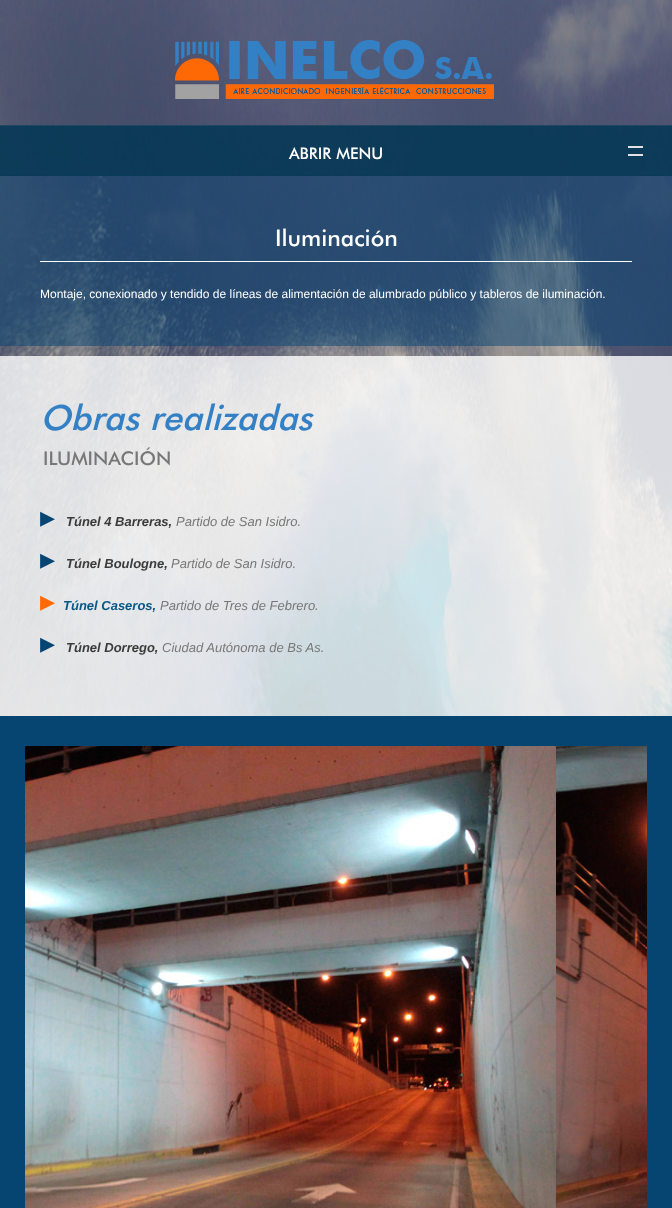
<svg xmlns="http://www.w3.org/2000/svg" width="672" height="1208">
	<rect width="100%" height="100%" fill="#FFFFFF" />
	<image x="0" y="0" width="672" height="716" href="assets/img1.png" />
	<image x="175" y="40" width="319" height="59" href="assets/img2.png" />
	<rect x="0" y="175" width="672" height="171" fill="#064472" fill-opacity="0.5" />
	<rect x="0" y="126" width="672" height="50" fill="#063856" fill-opacity="0.9" />
	<rect x="0" y="125" width="672" height="1" fill="#1E4762" />
	<text x="289" y="159" font-family="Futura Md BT" font-size="16" font-weight="500" fill="#FFFFFF">ABRIR MENU</text>
	<rect x="628" y="154" width="15" height="2" fill="#E1E1E1" />
	<rect x="628" y="146" width="15" height="2" fill="#E1E1E1" />
	<rect x="40" y="261" width="592" height="1" fill="#FFFFFF" />
	<text x="275" y="246" font-family="Futura Md BT" font-size="23" font-weight="500" fill="#FFFFFF">Iluminación</text>
	<text x="40" y="298" font-family="Liberation Sans" font-size="12" fill="#FFFFFF">Montaje, conexionado y tendido de líneas de alimentación de alumbrado público y tableros de iluminación.</text>
	<rect x="0" y="356" width="672" height="360" fill="#FFFFFF" fill-opacity="0.8" />
	<text x="40" y="430" font-family="Futura Md BT" font-size="35" font-weight="500" font-style="italic" fill="#3480C4">Obras realizadas</text>
	<text x="43" y="465" font-family="Futura Md BT" font-size="19" font-weight="500" fill="#777777">ILUMINACIÓN</text>
	<text x="40" y="527" font-family="DejaVu Sans" font-size="30" fill="#064472">▸</text>
	<text x="66" y="526" font-family="Liberation Sans" font-size="13" font-weight="700" font-style="italic" fill="#3B3B3B">Túnel 4 Barreras,</text>
	<text x="176" y="526" font-family="Liberation Sans" font-size="13" font-style="italic" fill="#777777">Partido de San Isidro.</text>
	<text x="40" y="569" font-family="DejaVu Sans" font-size="30" fill="#064472">▸</text>
	<text x="66" y="568" font-family="Liberation Sans" font-size="13" font-weight="700" font-style="italic" fill="#3B3B3B">Túnel Boulogne,</text>
	<text x="171" y="568" font-family="Liberation Sans" font-size="13" font-style="italic" fill="#777777">Partido de San Isidro.</text>
	<text x="40" y="611" font-family="DejaVu Sans" font-size="30" fill="#FF6905">▸</text>
	<text x="63" y="610" font-family="Liberation Sans" font-size="13" font-weight="700" font-style="italic" fill="#095885">Túnel Caseros,</text>
	<text x="160" y="610" font-family="Liberation Sans" font-size="13" font-style="italic" fill="#777777">Partido de Tres de Febrero.</text>
	<text x="40" y="653" font-family="DejaVu Sans" font-size="30" fill="#064472">▸</text>
	<text x="66" y="652" font-family="Liberation Sans" font-size="13" font-weight="700" font-style="italic" fill="#3B3B3B">Túnel Dorrego,</text>
	<text x="162" y="652" font-family="Liberation Sans" font-size="13" font-style="italic" fill="#777777">Ciudad Autónoma de Bs As.</text>
	<rect x="0" y="716" width="672" height="492" fill="#064472" />
	<image x="25" y="746" width="531" height="462" href="assets/img3.png" />
	<image x="556" y="746" width="91" height="462" href="assets/img4.png" />
</svg>
